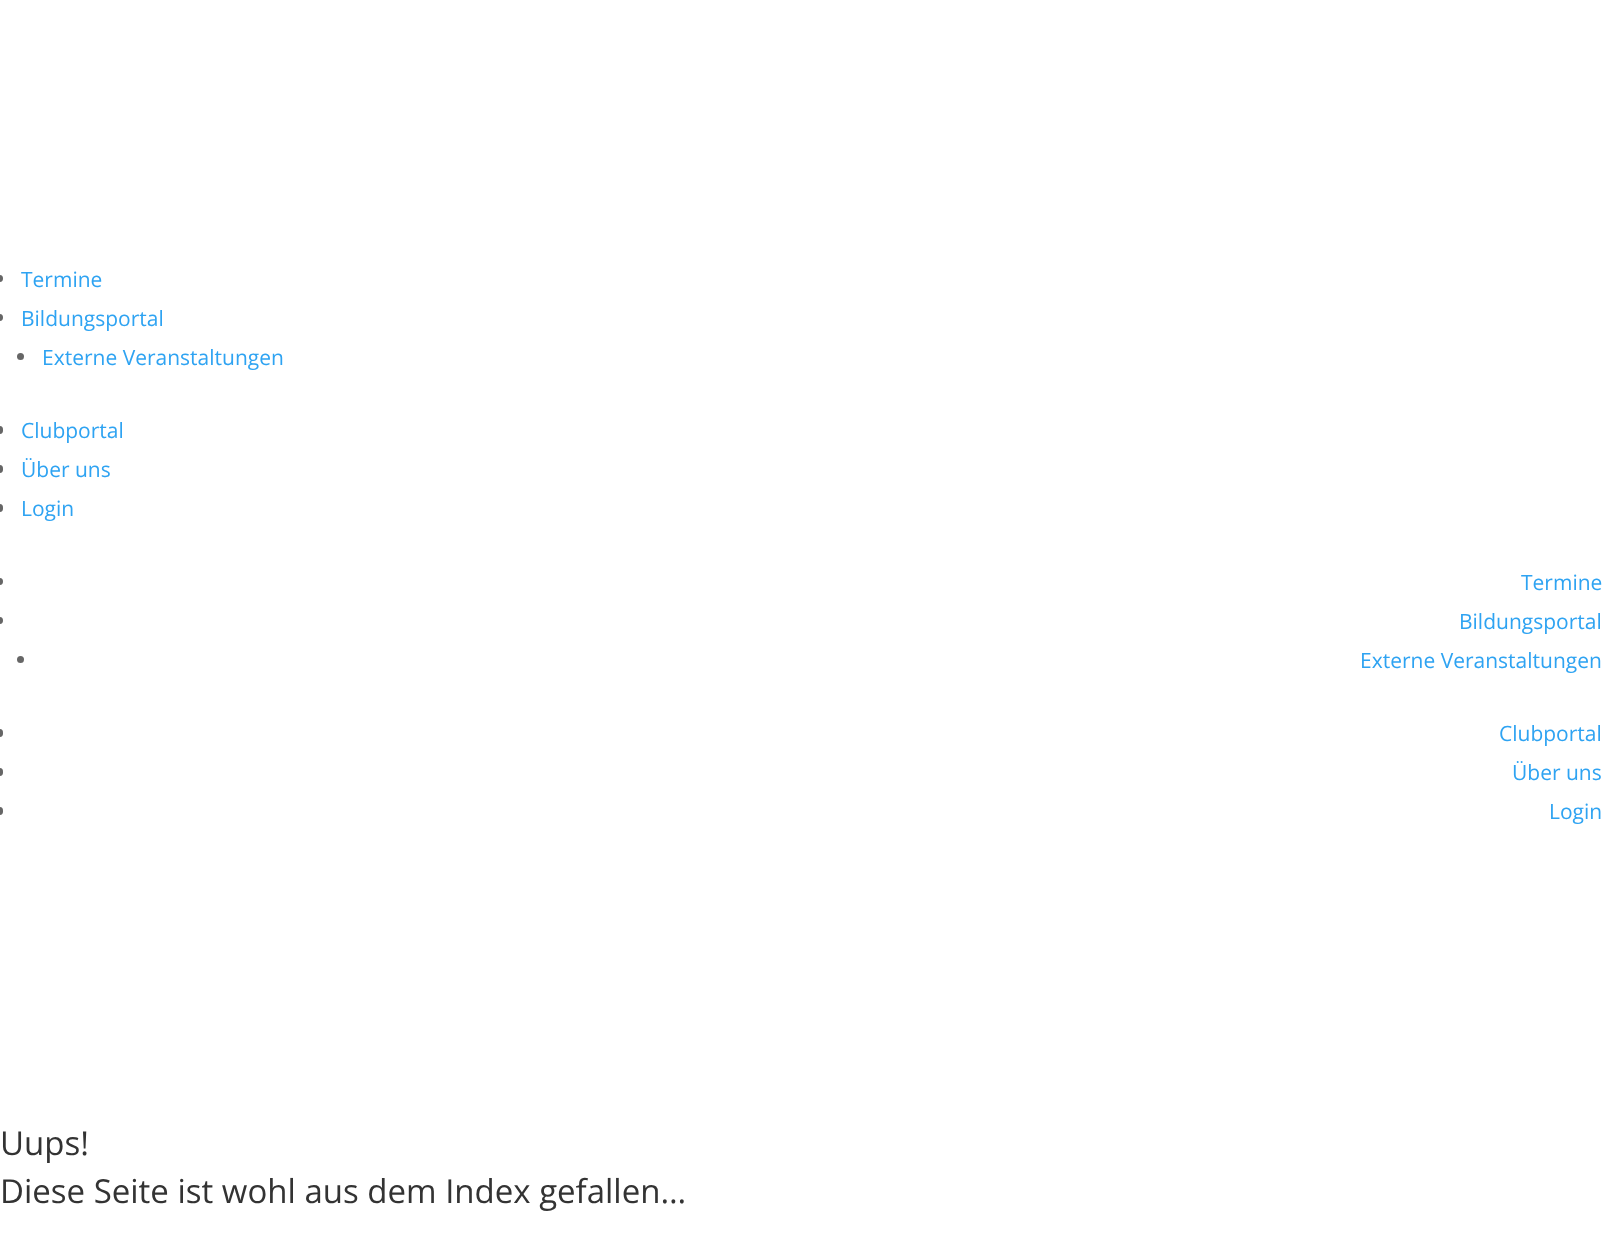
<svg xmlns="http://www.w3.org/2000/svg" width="1602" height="1257">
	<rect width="100%" height="100%" fill="#FFFFFF" />
	<circle cx="-0.5" cy="278.5" r="3.5" fill="#666666" />
	<text x="21" y="287" font-family="Open Sans" font-size="21" fill="#2EA3F2">Termine</text>
	<circle cx="-0.5" cy="317.5" r="3.5" fill="#666666" />
	<text x="21" y="326" font-family="Open Sans" font-size="21" fill="#2EA3F2">Bildungsportal</text>
	<circle cx="20.5" cy="356.5" r="3.5" fill="#666666" />
	<text x="42" y="365" font-family="Open Sans" font-size="21" fill="#2EA3F2">Externe Veranstaltungen</text>
	<rect x="-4" y="426" width="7" height="8" rx="3.5" fill="#666666" />
	<text x="21" y="438" font-family="Open Sans" font-size="21" fill="#2EA3F2">Clubportal</text>
	<rect x="-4" y="465" width="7" height="8" rx="3.5" fill="#666666" />
	<text x="21" y="477" font-family="Open Sans" font-size="21" fill="#2EA3F2">Über uns</text>
	<rect x="-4" y="504" width="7" height="8" rx="3.5" fill="#666666" />
	<text x="21" y="516" font-family="Open Sans" font-size="21" fill="#2EA3F2">Login</text>
	<circle cx="-0.5" cy="581.5" r="3.5" fill="#666666" />
	<text x="1521" y="590" font-family="Open Sans" font-size="21" fill="#2EA3F2">Termine</text>
	<circle cx="-0.5" cy="620.5" r="3.5" fill="#666666" />
	<text x="1459" y="629" font-family="Open Sans" font-size="21" fill="#2EA3F2">Bildungsportal</text>
	<circle cx="20.5" cy="659.5" r="3.5" fill="#666666" />
	<text x="1360" y="668" font-family="Open Sans" font-size="21" fill="#2EA3F2">Externe Veranstaltungen</text>
	<rect x="-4" y="729" width="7" height="8" rx="3.5" fill="#666666" />
	<text x="1499" y="741" font-family="Open Sans" font-size="21" fill="#2EA3F2">Clubportal</text>
	<rect x="-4" y="768" width="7" height="8" rx="3.5" fill="#666666" />
	<text x="1512" y="780" font-family="Open Sans" font-size="21" fill="#2EA3F2">Über uns</text>
	<rect x="-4" y="807" width="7" height="8" rx="3.5" fill="#666666" />
	<text x="1549" y="819" font-family="Open Sans" font-size="21" fill="#2EA3F2">Login</text>
	<g font-family="Open Sans" font-size="33" fill="#333333">
		<text x="0" y="1155">Uups!</text>
		<text x="0" y="1203">Diese Seite ist wohl aus dem Index gefallen…</text>
	</g>
</svg>
